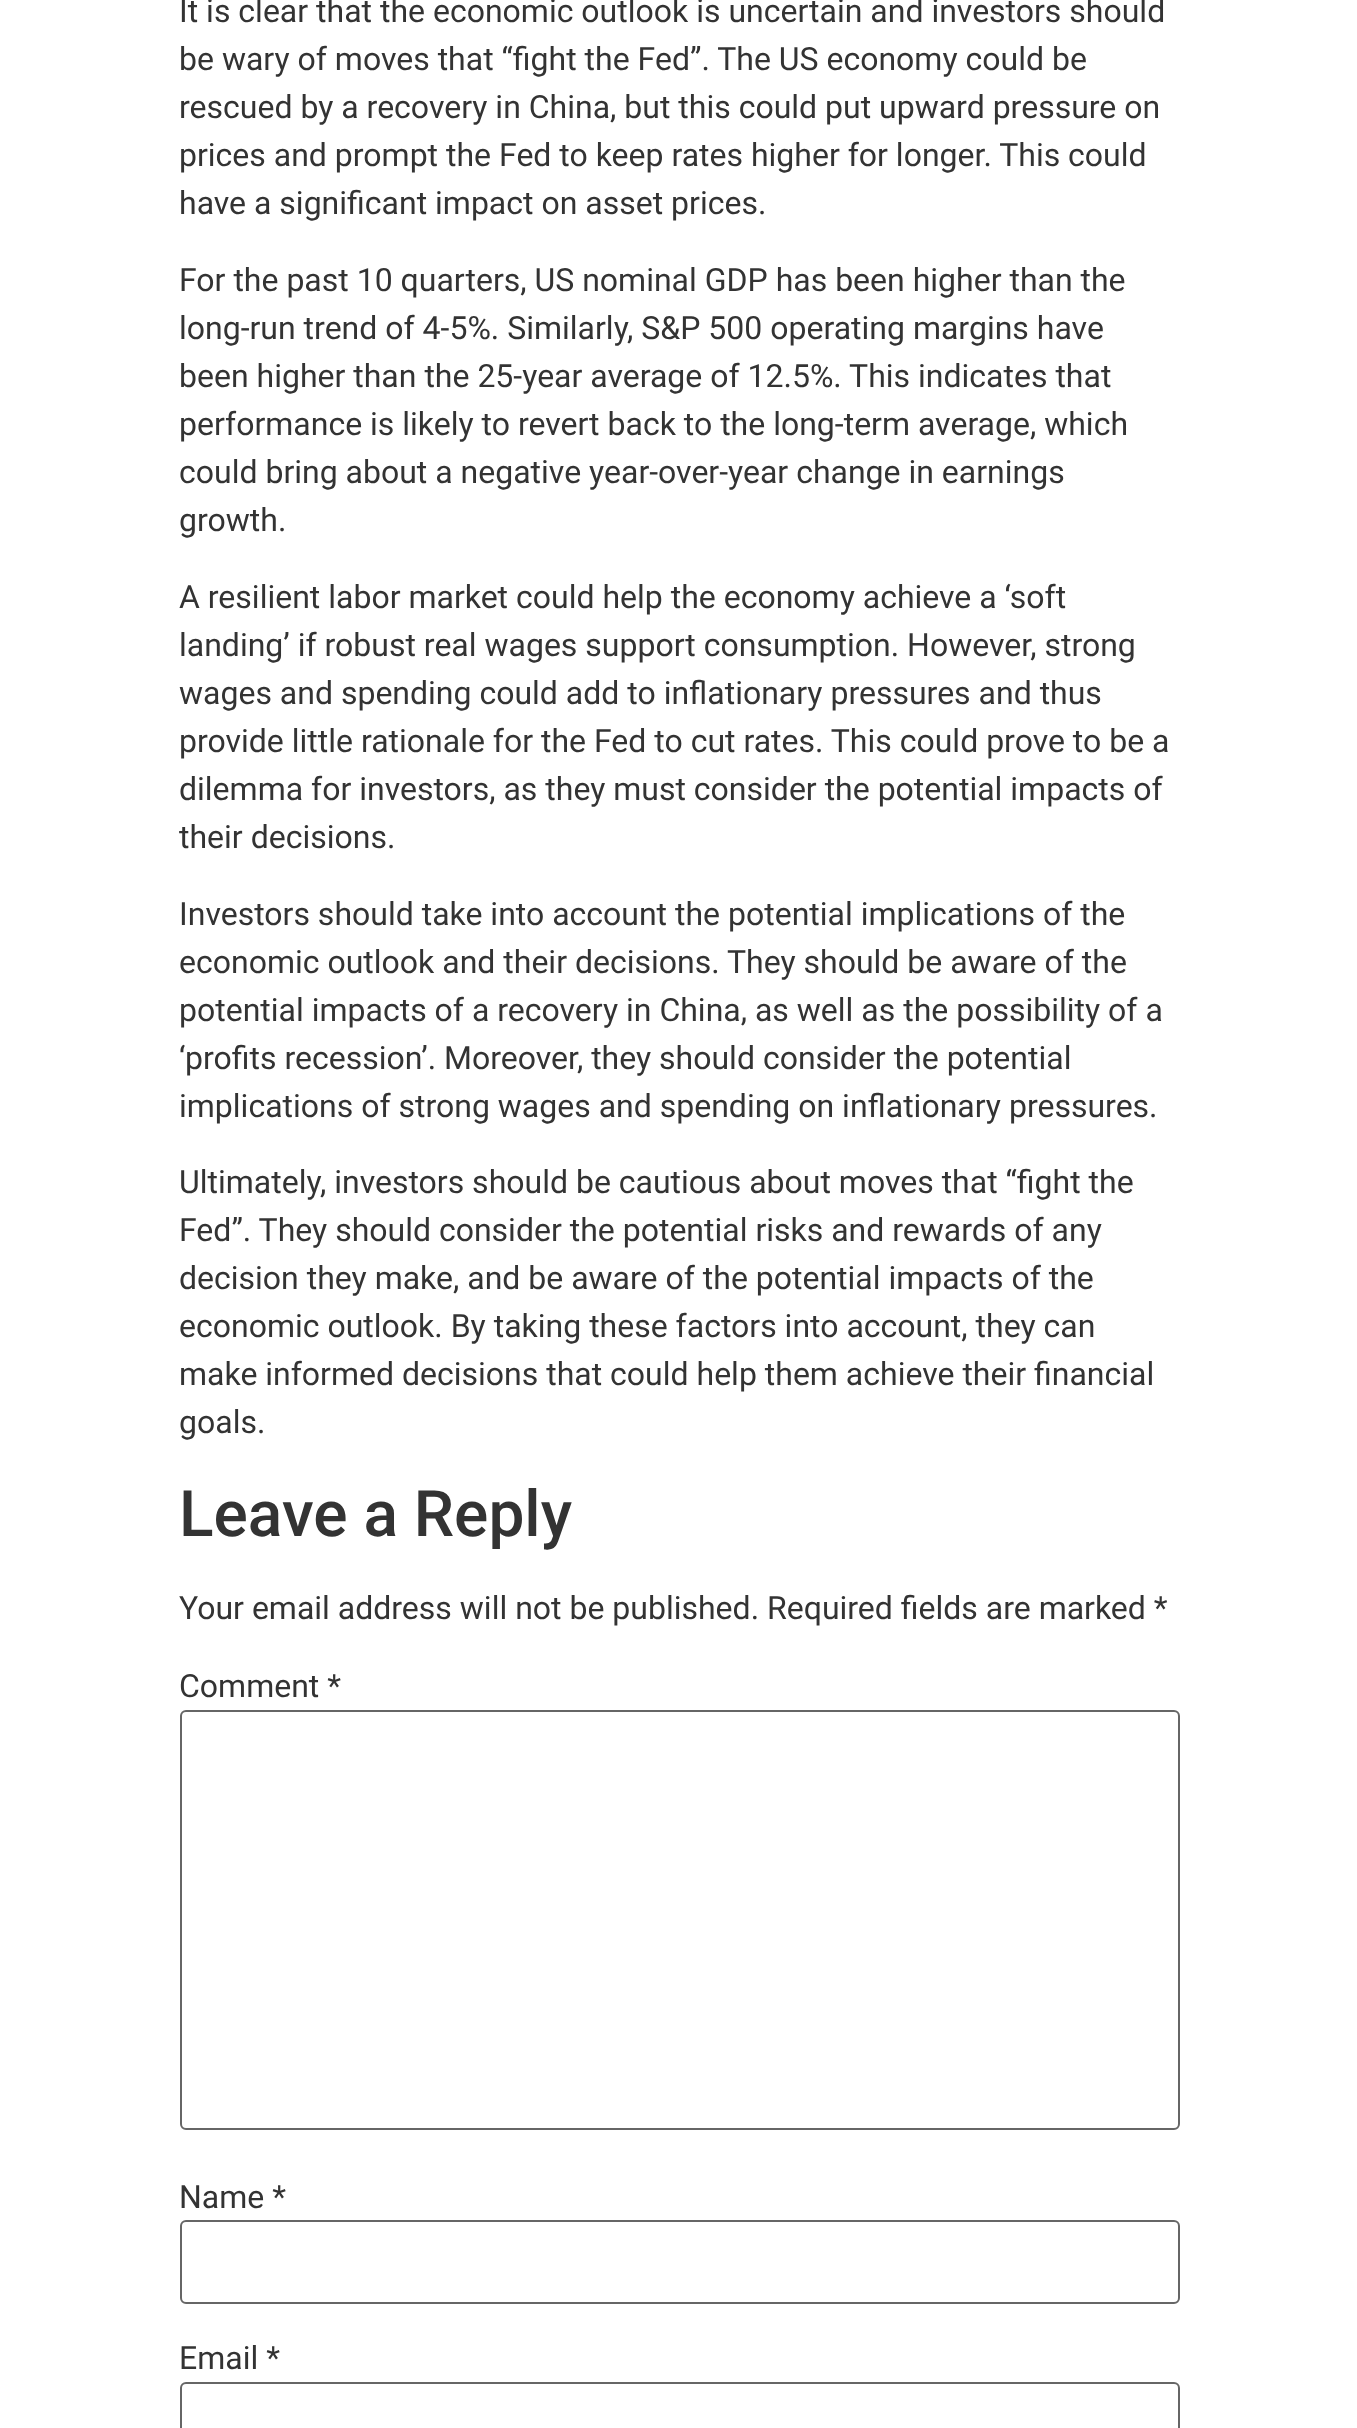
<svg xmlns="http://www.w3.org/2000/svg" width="1357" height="2428">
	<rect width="100%" height="100%" fill="#FFFFFF" />
	<g font-family="Roboto" font-size="32" fill="#333333">
		<text x="179" y="22">It is clear that the economic outlook is uncertain and investors should</text>
		<text x="179" y="70">be wary of moves that “fight the Fed”. The US economy could be</text>
		<text x="179" y="118">rescued by a recovery in China, but this could put upward pressure on</text>
		<text x="179" y="166">prices and prompt the Fed to keep rates higher for longer. This could</text>
		<text x="179" y="214">have a significant impact on asset prices.</text>
		<text x="179" y="291">For the past 10 quarters, US nominal GDP has been higher than the</text>
		<text x="179" y="339">long-run trend of 4-5%. Similarly, S&amp;P 500 operating margins have</text>
		<text x="179" y="387">been higher than the 25-year average of 12.5%. This indicates that</text>
		<text x="179" y="435">performance is likely to revert back to the long-term average, which</text>
		<text x="179" y="483">could bring about a negative year-over-year change in earnings</text>
		<text x="179" y="531">growth.</text>
		<text x="179" y="608">A resilient labor market could help the economy achieve a ‘soft</text>
		<text x="179" y="656">landing’ if robust real wages support consumption. However, strong</text>
		<text x="179" y="704">wages and spending could add to inflationary pressures and thus</text>
		<text x="179" y="752">provide little rationale for the Fed to cut rates. This could prove to be a</text>
		<text x="179" y="800">dilemma for investors, as they must consider the potential impacts of</text>
		<text x="179" y="848">their decisions.</text>
		<text x="179" y="925">Investors should take into account the potential implications of the</text>
		<text x="179" y="973">economic outlook and their decisions. They should be aware of the</text>
		<text x="179" y="1021">potential impacts of a recovery in China, as well as the possibility of a</text>
		<text x="179" y="1069">‘profits recession’. Moreover, they should consider the potential</text>
		<text x="179" y="1117">implications of strong wages and spending on inflationary pressures.</text>
		<text x="179" y="1193">Ultimately, investors should be cautious about moves that “fight the</text>
		<text x="179" y="1241">Fed”. They should consider the potential risks and rewards of any</text>
		<text x="179" y="1289">decision they make, and be aware of the potential impacts of the</text>
		<text x="179" y="1337">economic outlook. By taking these factors into account, they can</text>
		<text x="179" y="1385">make informed decisions that could help them achieve their financial</text>
		<text x="179" y="1433">goals.</text>
	</g>
	<text x="179" y="1536" font-family="Roboto" font-size="64" font-weight="500" fill="#333333">Leave a Reply</text>
	<g font-family="Roboto" font-size="32" fill="#333333">
		<text x="179" y="1619">Your email address will not be published. Required fields are marked *</text>
		<text x="179" y="1697">Comment *</text>
	</g>
	<rect x="181" y="1711" width="998" height="418" rx="5" fill="none" stroke="#666666" stroke-width="2" />
	<text x="179" y="2208" font-family="Roboto" font-size="32" fill="#333333">Name *</text>
	<rect x="181" y="2221" width="998" height="82" rx="5" fill="none" stroke="#666666" stroke-width="2" />
	<text x="179" y="2369" font-family="Roboto" font-size="32" fill="#333333">Email *</text>
	<rect x="181" y="2383" width="998" height="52" rx="5" fill="none" stroke="#666666" stroke-width="2" />
</svg>
